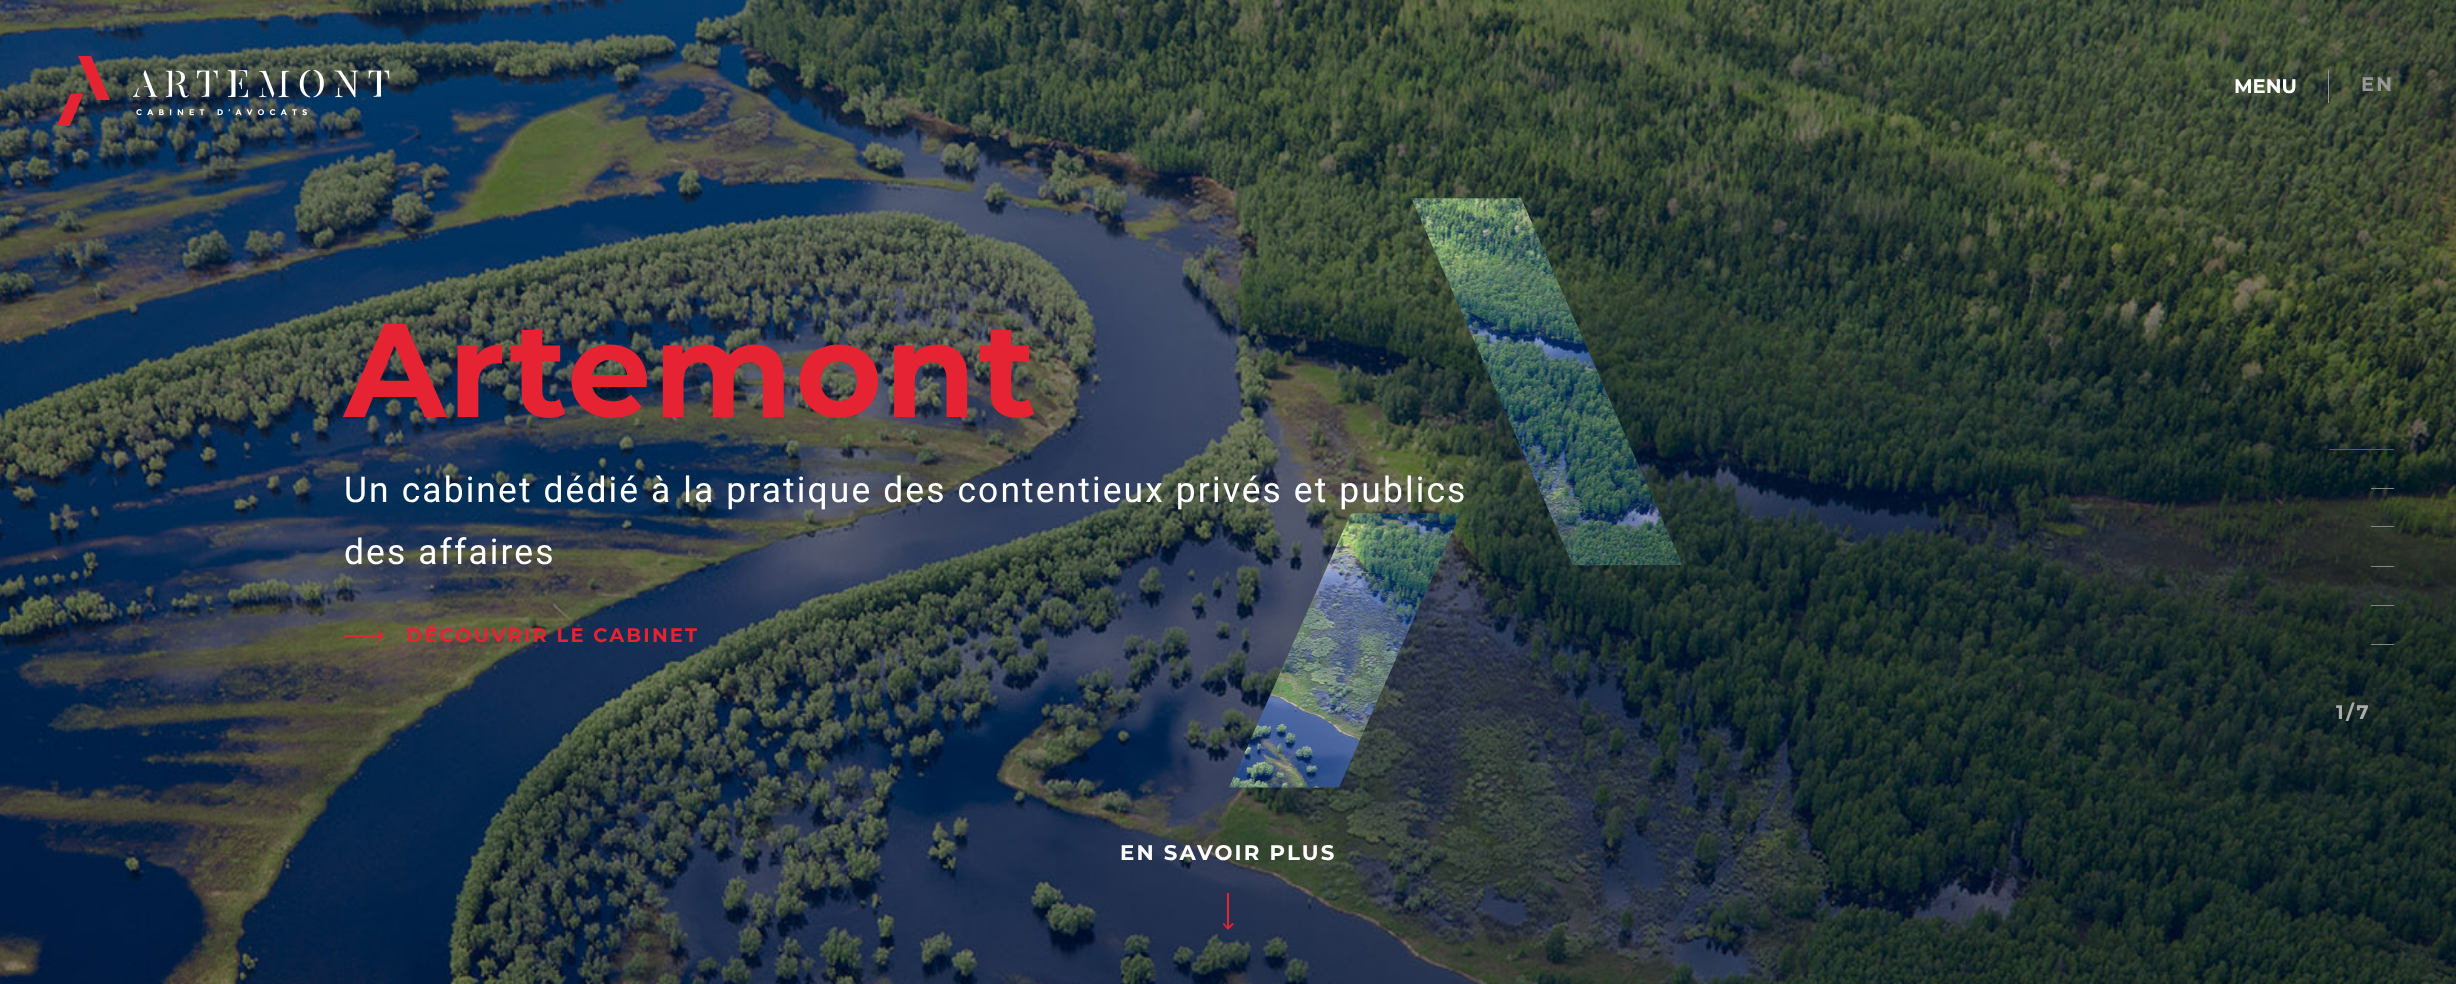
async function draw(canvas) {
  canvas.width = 2456;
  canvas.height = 984;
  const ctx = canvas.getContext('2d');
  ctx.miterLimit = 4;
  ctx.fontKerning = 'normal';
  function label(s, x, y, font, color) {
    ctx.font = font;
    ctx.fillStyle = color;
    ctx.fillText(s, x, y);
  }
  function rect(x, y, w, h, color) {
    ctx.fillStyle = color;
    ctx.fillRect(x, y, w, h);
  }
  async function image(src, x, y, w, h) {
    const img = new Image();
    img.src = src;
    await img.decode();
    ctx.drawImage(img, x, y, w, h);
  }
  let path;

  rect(0, 0, 2456, 984, '#fff');
  await image('assets/img2.png', 0, 0, 2456, 984);
  ctx.fillStyle = '#e52332';
  path = new Path2D('M110 100H97L78 56H91Z');
  ctx.fill(path);
  ctx.save();
  ctx.beginPath();
  ctx.rect(56, 56, 54, 70);
  ctx.clip();
  path = new Path2D('M56.5 126.5L69 97.5C70.5 94 69.5 93.5 72.5 93.5H83.5L69.5 126.5Z');
  ctx.fill(path);
  ctx.restore();
  await image('assets/img1.png', 133, 69, 257, 47);
  rect(2328, 70, 1, 33, '#989898');
  label('MENU', 2234, 93, 'bold 19.5px Montserrat', '#fff');
  ctx.letterSpacing = '2.12px';
  label('EN', 2361, 91, 'bold 19.5px Montserrat', '#989898');
  await image('assets/img3.png', 1229, 198, 453, 590);
  label('Artemont', 344, 417, 'bold 133px Montserrat', '#e52332');
  label('Un cabinet dédié à la pratique des contentieux privés et publics', 344, 502, '35.4px Roboto', '#fff');
  label('des affaires', 344, 564, '35.4px Roboto', '#fff');
  ctx.fillStyle = '#e52332';
  path = new Path2D('M378 630L377 631L380 635H344V637H381L377 641L378 642L384 636Z');
  ctx.fill(path);
  label('DÉCOUVRIR LE CABINET', 406, 642, 'bold 19.5px Montserrat', '#e52332');
  label('EN SAVOIR PLUS', 1120, 860, 'bold 21.25px Montserrat', '#fff');
  ctx.save();
  ctx.beginPath();
  ctx.rect(1223, 893, 11, 37);
  ctx.clip();
  ctx.fillStyle = '#e52332';
  path = new Path2D('M1234 924L1232.5 923L1229 926V892.5H1227V926.5L1224 923L1222.5 924L1228 930Z');
  ctx.fill(path);
  ctx.restore();
  rect(2329, 449, 65, 1, '#e52332');
  rect(2371, 488, 23, 1, '#858585');
  rect(2371, 526, 23, 1, '#858585');
  rect(2371, 566, 23, 1, '#858585');
  rect(2371, 605, 23, 1, '#858585');
  rect(2371, 644, 23, 1, '#858585');
  ctx.letterSpacing = '2.5px';
  label('1/7', 2336, 719, 'bold 19.5px Montserrat', '#ababab');
}

draw(document.querySelector('canvas'));
